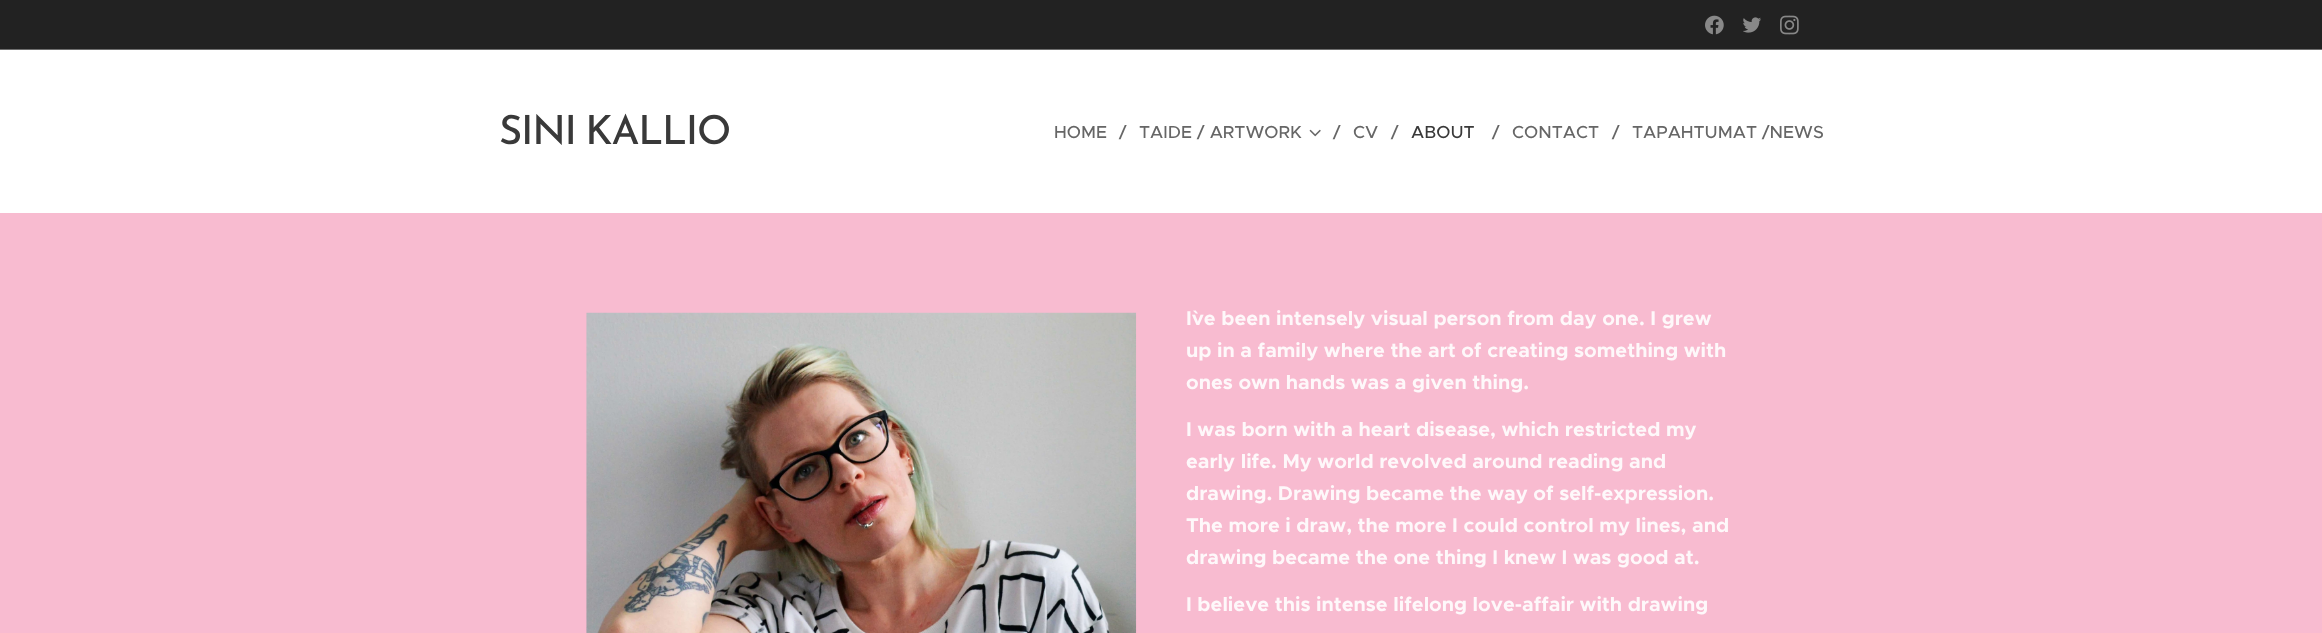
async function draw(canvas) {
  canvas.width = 2322;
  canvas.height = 633;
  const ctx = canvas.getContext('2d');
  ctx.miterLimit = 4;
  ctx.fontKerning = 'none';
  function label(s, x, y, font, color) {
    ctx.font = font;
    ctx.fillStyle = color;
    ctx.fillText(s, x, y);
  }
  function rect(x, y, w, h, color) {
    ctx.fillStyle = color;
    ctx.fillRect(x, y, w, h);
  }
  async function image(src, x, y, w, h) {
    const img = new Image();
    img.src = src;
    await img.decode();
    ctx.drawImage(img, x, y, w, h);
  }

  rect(0, 0, 2322, 633, '#fff');
  rect(0, 0, 2322, 49, '#222');
  await image('assets/img1.png', 1705, 15, 19, 20);
  await image('assets/img2.png', 1743, 17, 18, 16);
  await image('assets/img3.png', 1780, 15, 19, 20);
  rect(0, 49, 2322, 1, '#6e6e6e');
  ctx.letterSpacing = '-1.25px';
  ctx.wordSpacing = '-2px';
  label('SINI KALLIO', 499, 144, '500 40px Josefin Sans', '#393939');
  ctx.letterSpacing = '0px';
  ctx.wordSpacing = '0px';
  label('HOME', 1054, 138, '500 17.5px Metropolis', '#666');
  label('/', 1119, 138, '500 17.5px Metropolis', '#666');
  label('TAIDE / ARTWORK', 1139, 138, '500 17.5px Metropolis', '#666');
  label('/', 1333, 138, '500 17.5px Metropolis', '#666');
  await image('assets/img4.png', 1309, 129, 12, 8);
  label('CV', 1353, 138, '500 17.5px Metropolis', '#666');
  label('/', 1391, 138, '500 17.5px Metropolis', '#666');
  label('ABOUT', 1411, 138, '500 17.5px Metropolis', '#393939');
  label('/', 1492, 138, '500 17.5px Metropolis', '#666');
  label('CONTACT', 1512, 138, '500 17.5px Metropolis', '#666');
  label('/', 1612, 138, '500 17.5px Metropolis', '#666');
  label('TAPAHTUMAT /NEWS', 1632, 138, '500 17.5px Metropolis', '#666');
  rect(0, 213, 2322, 420, '#f8bbd0');
  await image('assets/img5.png', 586, 312, 551, 321);
  label('I`ve been intensely visual person from day one. I grew', 1186, 325, 'bold 20px Metropolis', '#fef8fa');
  label('up in a family where the art of creating something with', 1186, 357, 'bold 20px Metropolis', '#fef8fa');
  label('ones own hands was a given thing.', 1186, 389, 'bold 20px Metropolis', '#fef8fa');
  label('I was born with a heart disease, which restricted my', 1186, 436, 'bold 20px Metropolis', '#fef8fa');
  label('early life. My world revolved around reading and', 1186, 468, 'bold 20px Metropolis', '#fef8fa');
  label('drawing. Drawing became the way of self-expression.', 1186, 500, 'bold 20px Metropolis', '#fef8fa');
  label('The more i draw, the more I could control my lines, and', 1186, 532, 'bold 20px Metropolis', '#fef8fa');
  label('drawing became the one thing I knew I was good at.', 1186, 564, 'bold 20px Metropolis', '#fef8fa');
  label('I believe this intense lifelong love-affair with drawing', 1186, 611, 'bold 20px Metropolis', '#fef8fa');
}

draw(document.querySelector('canvas'));
